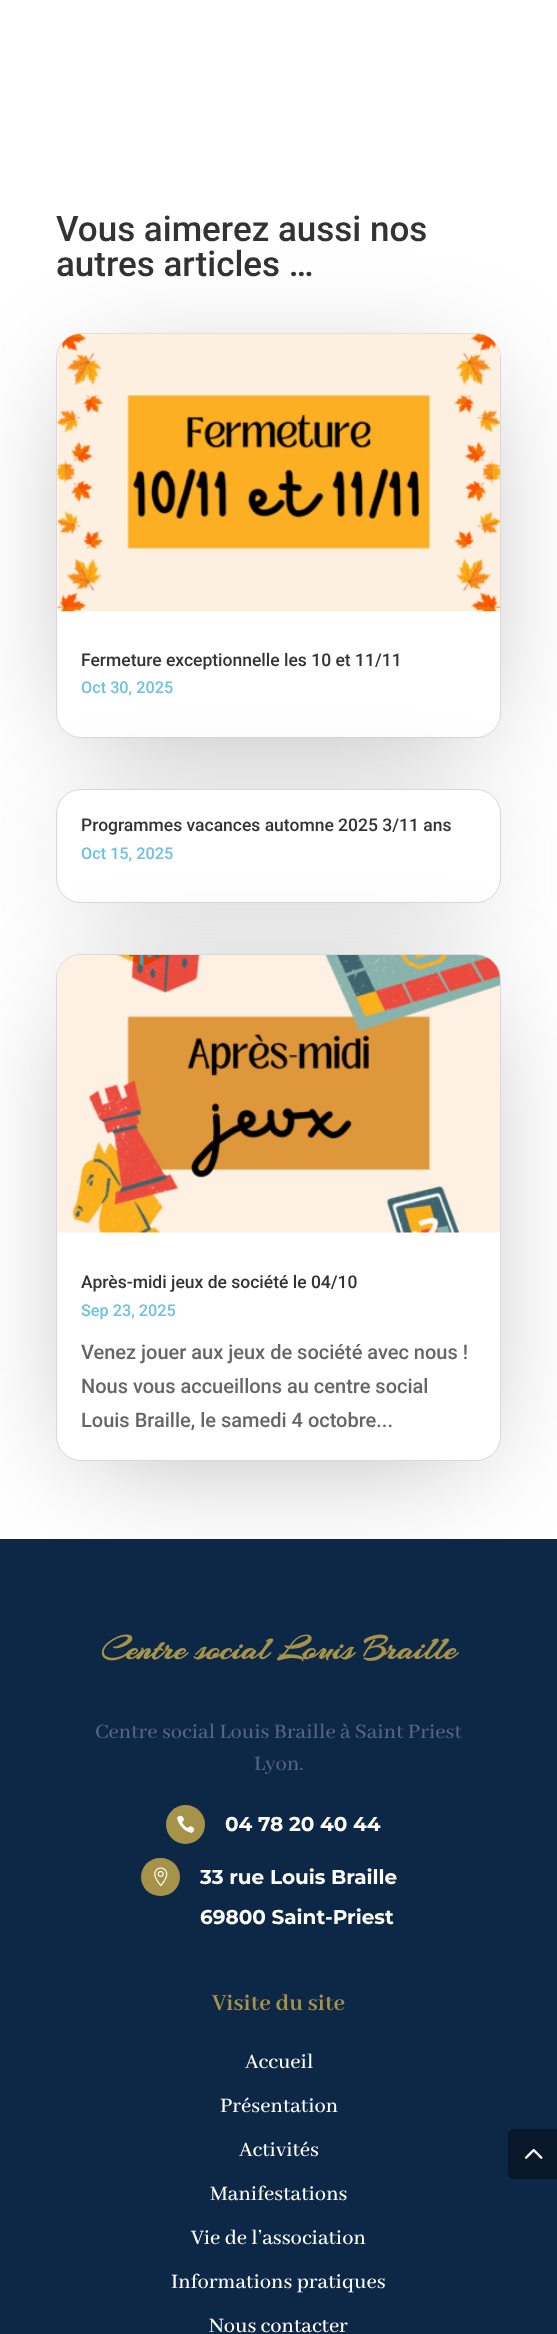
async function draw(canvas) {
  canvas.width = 557;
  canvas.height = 2334;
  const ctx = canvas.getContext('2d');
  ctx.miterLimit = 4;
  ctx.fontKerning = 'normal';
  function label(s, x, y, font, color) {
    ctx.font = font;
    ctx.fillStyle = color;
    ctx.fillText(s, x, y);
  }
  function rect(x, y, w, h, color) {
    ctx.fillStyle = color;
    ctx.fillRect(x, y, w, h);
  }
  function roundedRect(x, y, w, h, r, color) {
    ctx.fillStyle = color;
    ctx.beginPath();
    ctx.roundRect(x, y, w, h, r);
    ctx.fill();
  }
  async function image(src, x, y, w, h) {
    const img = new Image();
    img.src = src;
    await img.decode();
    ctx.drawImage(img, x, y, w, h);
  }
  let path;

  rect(0, 0, 557, 2334, '#fff');
  label('Vous aimerez aussi nos', 56, 241, '500 35px Roboto', '#333');
  label('autres articles …', 56, 276, '500 35px Roboto', '#333');
  ctx.fillStyle = '#0000004d';
  ctx.filter = 'blur(60px)';
  ctx.beginPath();
  ctx.rect(86, 383, 385, 345);
  ctx.fill();
  ctx.filter = 'none';
  ctx.fillStyle = '#fff';
  ctx.beginPath();
  ctx.roundRect(56.5, 333.5, 444, 404, 24.5);
  ctx.fill();
  ctx.strokeStyle = '#d8d8d8';
  ctx.stroke();
  await image('assets/img1.png', 57, 333, 443, 279);
  label('Fermeture exceptionnelle les 10 et 11/11', 81, 666, '500 17.5px Roboto', '#333');
  label('Oct 30, 2025', 81, 693, '500 16.25px Roboto', '#6ec1e4');
  ctx.fillStyle = '#0000004d';
  ctx.filter = 'blur(60px)';
  ctx.beginPath();
  ctx.rect(86, 839, 385, 54);
  ctx.fill();
  ctx.filter = 'none';
  ctx.fillStyle = '#fff';
  ctx.beginPath();
  ctx.roundRect(56.5, 789.5, 444, 113, 24.5);
  ctx.fill();
  ctx.stroke();
  label('Programmes vacances automne 2025 3/11 ans', 81, 831, '500 17.5px Roboto', '#333');
  label('Oct 15, 2025', 81, 859, '500 16.25px Roboto', '#6ec1e4');
  ctx.fillStyle = '#0000004d';
  ctx.filter = 'blur(60px)';
  ctx.beginPath();
  ctx.rect(86, 1004, 385, 447);
  ctx.fill();
  ctx.filter = 'none';
  ctx.fillStyle = '#fff';
  ctx.beginPath();
  ctx.roundRect(56.5, 954.5, 444, 506, 24.5);
  ctx.fill();
  ctx.stroke();
  await image('assets/img2.png', 57, 955, 443, 278);
  label('Après-midi jeux de société le 04/10', 81, 1288, '500 17.5px Roboto', '#333');
  label('Sep 23, 2025', 81, 1316, '500 16.25px Roboto', '#6ec1e4');
  label('Venez jouer aux jeux de société avec nous !', 81, 1359, '500 20px Roboto', '#666');
  label('Nous vous accueillons au centre social', 81, 1393, '500 20px Roboto', '#666');
  label('Louis Braille, le samedi 4 octobre...', 81, 1427, '500 20px Roboto', '#666');
  rect(0, 1539, 557, 795, '#0d2746');
  label('Centre social Louis Braille', 101, 1659, 'bold 35px Arizonia', '#a69349');
  label('Centre social Louis Braille à Saint Priest', 95, 1738, '500 22.5px Abhaya Libre Medium', '#56687e');
  label('Lyon.', 254, 1770, '500 22.5px Abhaya Libre Medium', '#56687e');
  ctx.fillStyle = '#a69349';
  ctx.beginPath();
  ctx.arc(185.5, 1824.5, 19.5, 0, 2 * Math.PI);
  ctx.fill();
  await image('assets/img3.png', 177, 1815, 18, 18);
  label('04 78 20 40 44', 225, 1831, 'bold 20px Montserrat', '#fff');
  roundedRect(141, 1858, 39, 38, 19, '#a69349');
  await image('assets/img4.png', 154, 1867, 14, 20);
  label('33 rue Louis Braille', 200, 1884, 'bold 20px Montserrat', '#fff');
  label('69800 Saint-Priest', 200, 1924, 'bold 20px Montserrat', '#fff');
  label('Visite du site', 212, 2010, 'bold 25px Abhaya Libre', '#a69349');
  label('Accueil', 245, 2068, '500 22.5px Abhaya Libre Medium', '#fff');
  label('Présentation', 220, 2112, '500 22.5px Abhaya Libre Medium', '#fff');
  label('Activités', 239, 2156, '500 22.5px Abhaya Libre Medium', '#fff');
  label('Manifestations', 210, 2200, '500 22.5px Abhaya Libre Medium', '#fff');
  label('Vie de l’association', 191, 2244, '500 22.5px Abhaya Libre Medium', '#fff');
  label('Informations pratiques', 171, 2288, '500 22.5px Abhaya Libre Medium', '#fff');
  label('Nous contacter', 209, 2332, '500 22.5px Abhaya Libre Medium', '#fff');
  ctx.fillStyle = '#08172a';
  path = new Path2D('M514 2129H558V2179H514C510.5 2179 508 2176.5 508 2173V2135C508 2131.5 510.5 2129 514 2129Z');
  ctx.fill(path);
  await image('assets/img5.png', 524, 2148, 19, 11);
}

draw(document.querySelector('canvas'));
